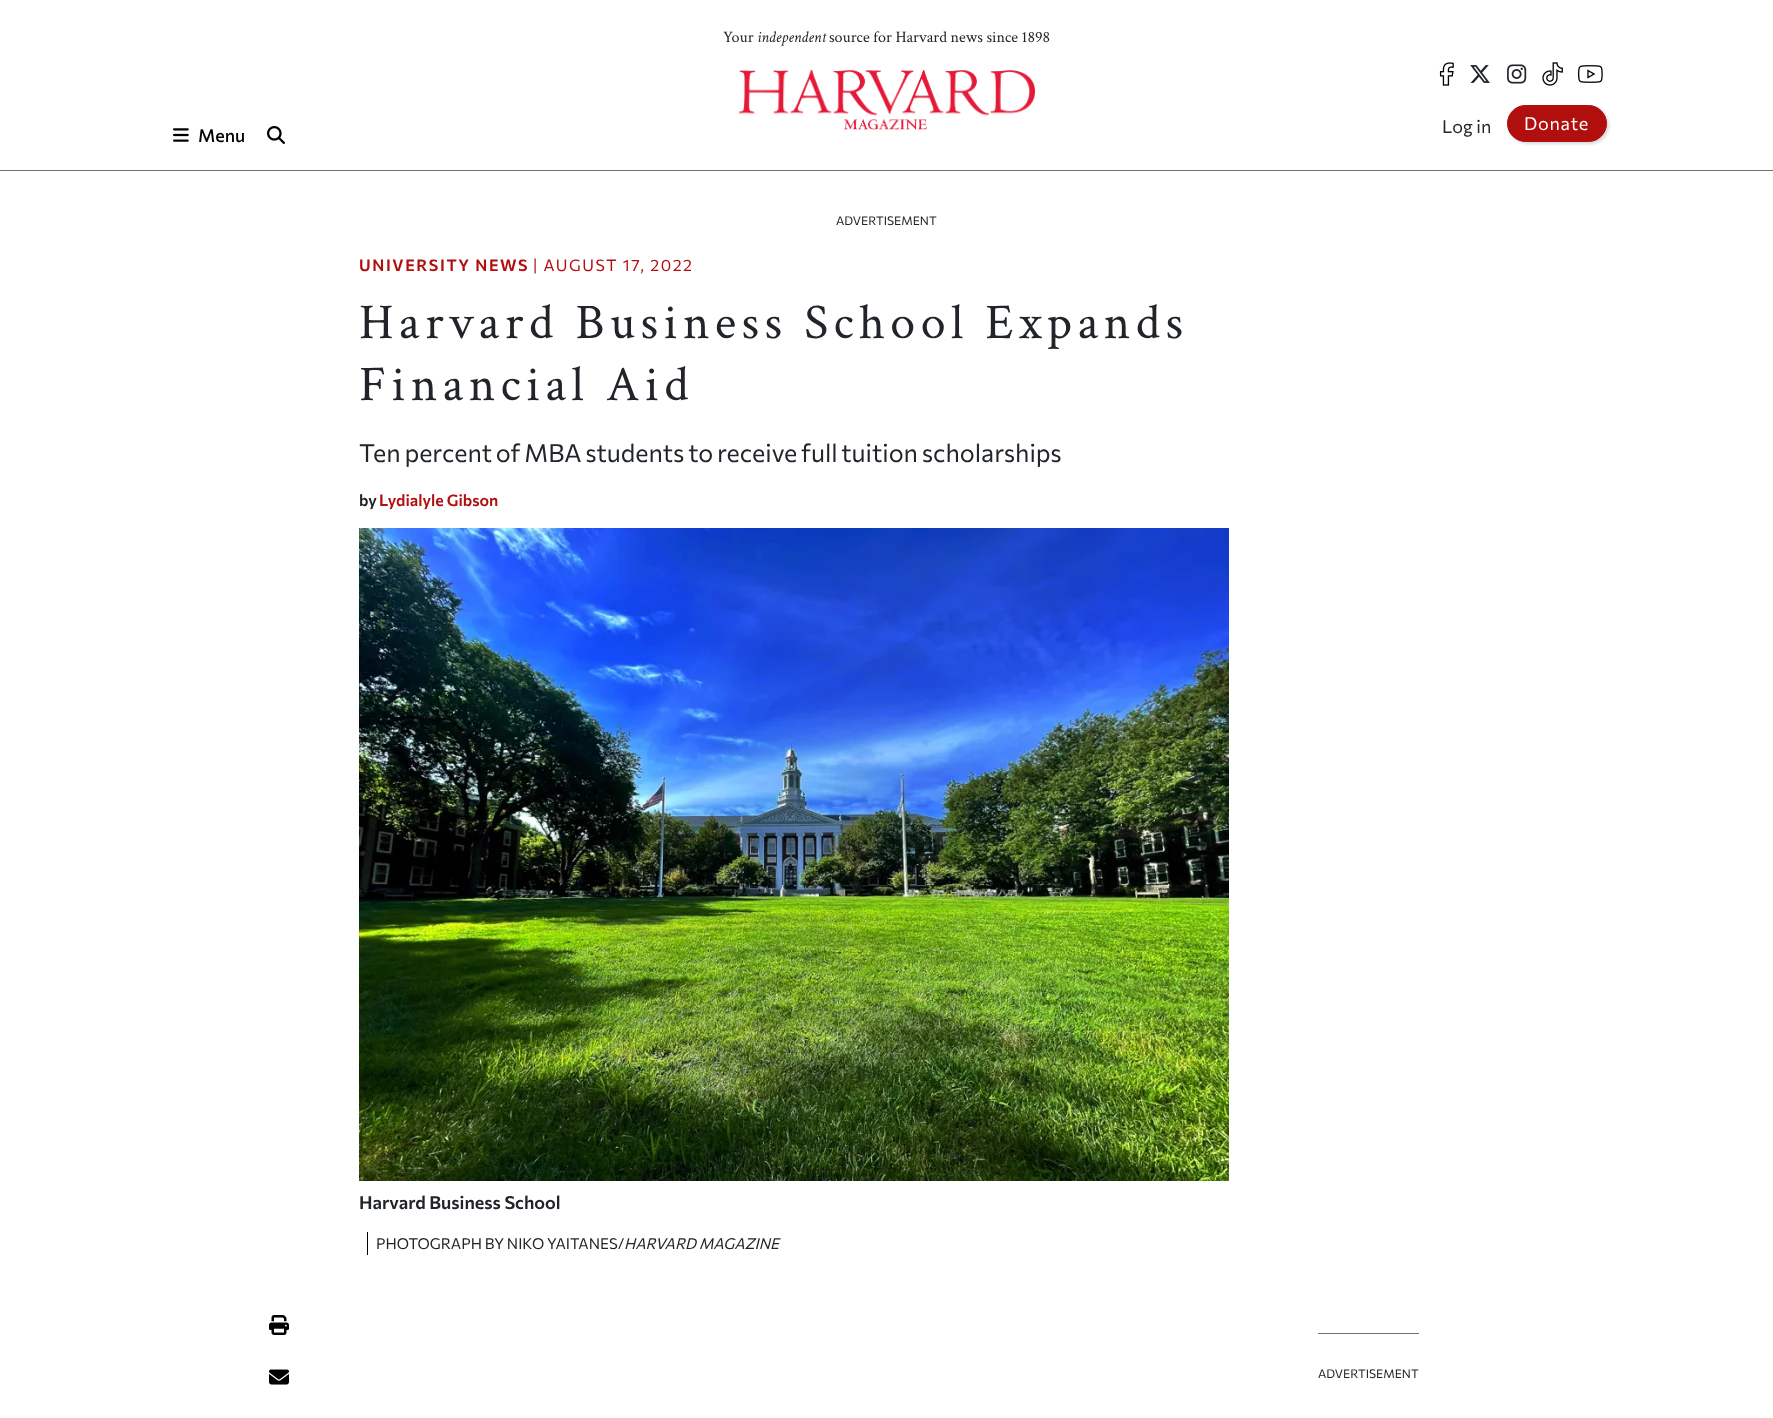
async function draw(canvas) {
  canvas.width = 1773;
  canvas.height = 1418;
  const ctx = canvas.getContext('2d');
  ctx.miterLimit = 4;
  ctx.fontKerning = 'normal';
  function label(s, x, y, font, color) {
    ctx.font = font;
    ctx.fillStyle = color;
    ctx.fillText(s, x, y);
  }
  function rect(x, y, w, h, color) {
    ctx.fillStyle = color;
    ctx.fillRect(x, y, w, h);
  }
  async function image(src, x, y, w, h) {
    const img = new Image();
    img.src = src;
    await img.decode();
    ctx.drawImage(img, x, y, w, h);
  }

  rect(0, 0, 1773, 1418, '#fff');
  rect(0, 170, 1773, 1, '#707070');
  label('Your', 723, 42, '16px Crimson Text', '#212529');
  label('independent', 757, 42, 'italic 16px Crimson Text', '#212529');
  label('source for Harvard news since 1898', 829, 42, '16px Crimson Text', '#212529');
  await image('assets/img1.png', 739, 70, 296, 60);
  await image('assets/img2.png', 173, 128, 16, 14);
  label('Menu', 198, 142, '500 18px Commissioner', '#000');
  await image('assets/img3.png', 267, 126, 18, 18);
  await image('assets/img4.png', 1439, 62, 15, 24);
  await image('assets/img5.png', 1470, 65, 20, 18);
  await image('assets/img6.png', 1507, 64, 20, 20);
  await image('assets/img7.png', 1542, 62, 21, 24);
  await image('assets/img8.png', 1578, 65, 25, 18);
  label('Log in', 1442, 133, '18px Commissioner', '#212529');
  ctx.fillStyle = '#00000026';
  ctx.filter = 'blur(1.5px)';
  ctx.beginPath();
  ctx.roundRect(1509, 107, 100, 37, 18.5);
  ctx.fill();
  ctx.filter = 'none';
  ctx.fillStyle = '#b10e0e';
  ctx.beginPath();
  ctx.roundRect(1507.5, 105.5, 99, 36, 18);
  ctx.fill();
  ctx.strokeStyle = '#b10e0e';
  ctx.stroke();
  ctx.letterSpacing = '0.75px';
  label('Donate', 1524, 130, '18px Commissioner', '#fff');
  ctx.letterSpacing = '0px';
  label('ADVERTISEMENT', 836, 225, '12px Commissioner', '#212529');
  ctx.letterSpacing = '1.6px';
  label('UNIVERSITY NEWS', 359, 271, '600 16px Commissioner', '#b10e0e');
  label('| AUGUST 17, 2022', 533, 271, '16px Commissioner', '#b10e0e');
  ctx.letterSpacing = '5.5px';
  label('Harvard Business School Expands', 359, 338, '50px Crimson Text', '#212529');
  label('Financial Aid', 359, 400, '50px Crimson Text', '#212529');
  ctx.letterSpacing = '0px';
  ctx.wordSpacing = '-1px';
  label('Ten percent of MBA students to receive full tuition scholarships', 359, 462, '25px Commissioner', '#212529');
  ctx.wordSpacing = '0px';
  label('by', 359, 506, '600 16px Commissioner', '#212529');
  label('Lydialyle Gibson', 379, 506, '600 16px Commissioner', '#b10e0e');
  await image('assets/img9.png', 359, 528, 870, 653);
  label('Harvard Business School', 359, 1209, '600 18px Commissioner', '#212529');
  rect(367, 1232, 1, 23, '#000');
  label('PHOTOGRAPH BY NIKO YAITANES/', 376, 1249, '15px Commissioner', '#212529');
  label('HARVARD MAGAZINE', 624, 1249, 'italic 15px Commissioner', '#212529');
  await image('assets/img10.png', 269, 1315, 20, 20);
  await image('assets/img11.png', 269, 1369, 20, 16);
  rect(1318, 1333, 101, 1, '#707070');
  label('ADVERTISEMENT', 1318, 1378, '12px Commissioner', '#212529');
}

draw(document.querySelector('canvas'));
